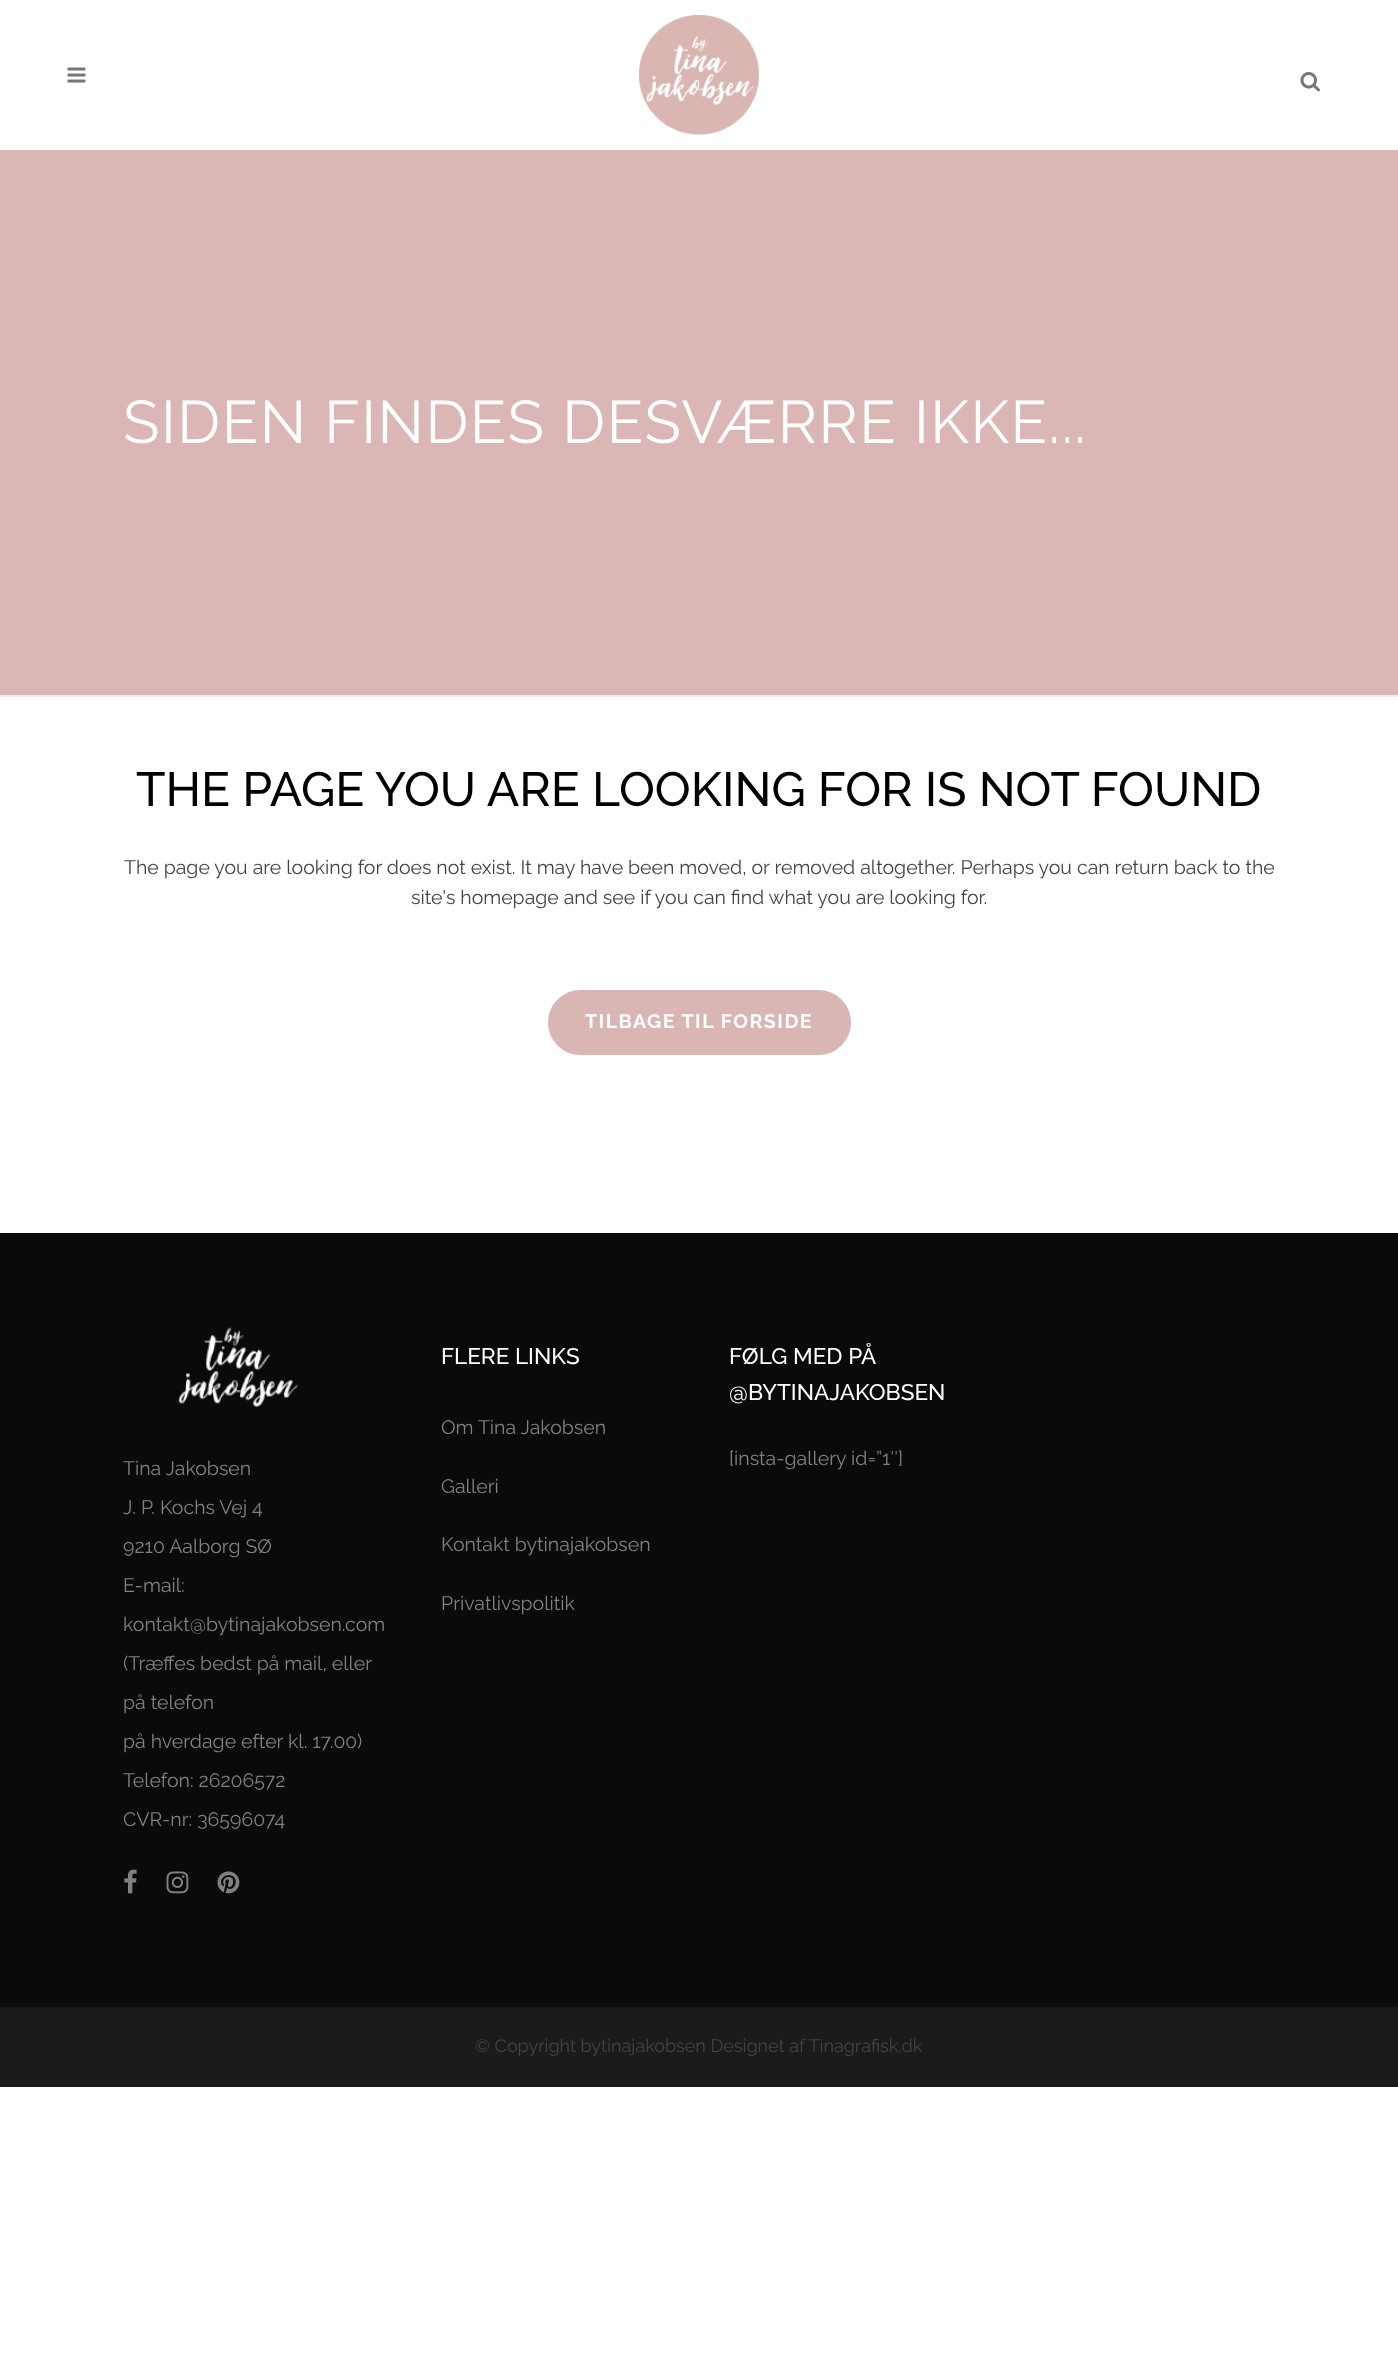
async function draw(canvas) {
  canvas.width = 1398;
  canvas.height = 2354;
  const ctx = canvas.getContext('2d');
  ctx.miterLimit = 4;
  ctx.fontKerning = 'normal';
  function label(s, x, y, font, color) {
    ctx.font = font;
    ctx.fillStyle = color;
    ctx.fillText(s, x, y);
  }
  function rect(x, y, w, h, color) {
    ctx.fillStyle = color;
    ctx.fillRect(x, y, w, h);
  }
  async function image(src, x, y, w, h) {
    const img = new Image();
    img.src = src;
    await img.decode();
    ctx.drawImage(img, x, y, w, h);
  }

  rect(0, 0, 1398, 2354, '#fff');
  await image('assets/img1.png', 67, 67, 19, 16);
  await image('assets/img2.png', 639, 15, 120, 120);
  await image('assets/img3.png', 1300, 72, 20, 20);
  rect(0, 695, 1398, 2, '#eee');
  rect(0, 150, 1398, 545, '#dab7b5');
  ctx.letterSpacing = '1.5px';
  label('SIDEN FINDES DESVÆRRE IKKE...', 123, 443, '60px Raleway', '#fff');
  ctx.letterSpacing = '0px';
  label('THE PAGE YOU ARE LOOKING FOR IS NOT FOUND', 136, 806, '500 48px Raleway', '#000');
  label('The page you are looking for does not exist. It may have been moved, or removed altogether. Perhaps you can return back to the', 124, 874, '19.5px Raleway', '#444');
  label('site\'s homepage and see if you can find what you are looking for.', 411, 904, '19.5px Raleway', '#444');
  ctx.fillStyle = '#d9b6b4';
  ctx.beginPath();
  ctx.roundRect(549.5, 991.5, 300, 62, 31);
  ctx.fill();
  ctx.strokeStyle = '#d9b6b4';
  ctx.lineWidth = 3;
  ctx.stroke();
  ctx.letterSpacing = '1.5px';
  label('TILBAGE TIL FORSIDE', 585, 1028, 'bold 19.5px Raleway', '#fff');
  rect(0, 1233, 1398, 774, '#0a0a0a');
  await image('assets/img4.png', 178, 1327, 120, 80);
  ctx.letterSpacing = '0px';
  label('Tina Jakobsen', 123, 1475, '19.5px Raleway', '#818181');
  label('J. P. Kochs Vej 4', 123, 1514, '19.5px Raleway', '#818181');
  label('9210 Aalborg SØ', 123, 1553, '19.5px Raleway', '#818181');
  label('E-mail:', 123, 1592, '19.5px Raleway', '#818181');
  label('kontakt@bytinajakobsen.com', 123, 1631, '19.5px Raleway', '#818181');
  label('(Træffes bedst på mail, eller', 123, 1670, '19.5px Raleway', '#818181');
  label('på telefon', 123, 1709, '19.5px Raleway', '#818181');
  label('på hverdage efter kl. 17.00)', 123, 1748, '19.5px Raleway', '#818181');
  label('Telefon: 26206572', 123, 1787, '19.5px Raleway', '#818181');
  label('CVR-nr: 36596074', 123, 1826, '19.5px Raleway', '#818181');
  await image('assets/img5.png', 124, 1869, 13, 25);
  await image('assets/img6.png', 166, 1871, 23, 23);
  await image('assets/img7.png', 217, 1871, 23, 23);
  label('FLERE LINKS', 441, 1364, '500 22.5px Raleway', '#fff');
  label('Om Tina Jakobsen', 441, 1434, '19.5px Raleway', '#818181');
  label('Galleri', 441, 1493, '19.5px Raleway', '#818181');
  label('Kontakt bytinajakobsen', 441, 1551, '19.5px Raleway', '#818181');
  label('Privatlivspolitik', 441, 1610, '19.5px Raleway', '#818181');
  label('FØLG MED PÅ', 729, 1364, '500 22.5px Raleway', '#fff');
  label('@BYTINAJAKOBSEN', 729, 1400, '500 22.5px Raleway', '#fff');
  label('[insta-gallery id=”1″]', 729, 1465, '19.5px Raleway', '#818181');
  rect(0, 2007, 1398, 80, '#1b1b1b');
  label('© Copyright bytinajakobsen Designet af Tinagrafisk.dk', 475, 2052, '18px Raleway', '#444');
}

draw(document.querySelector('canvas'));
